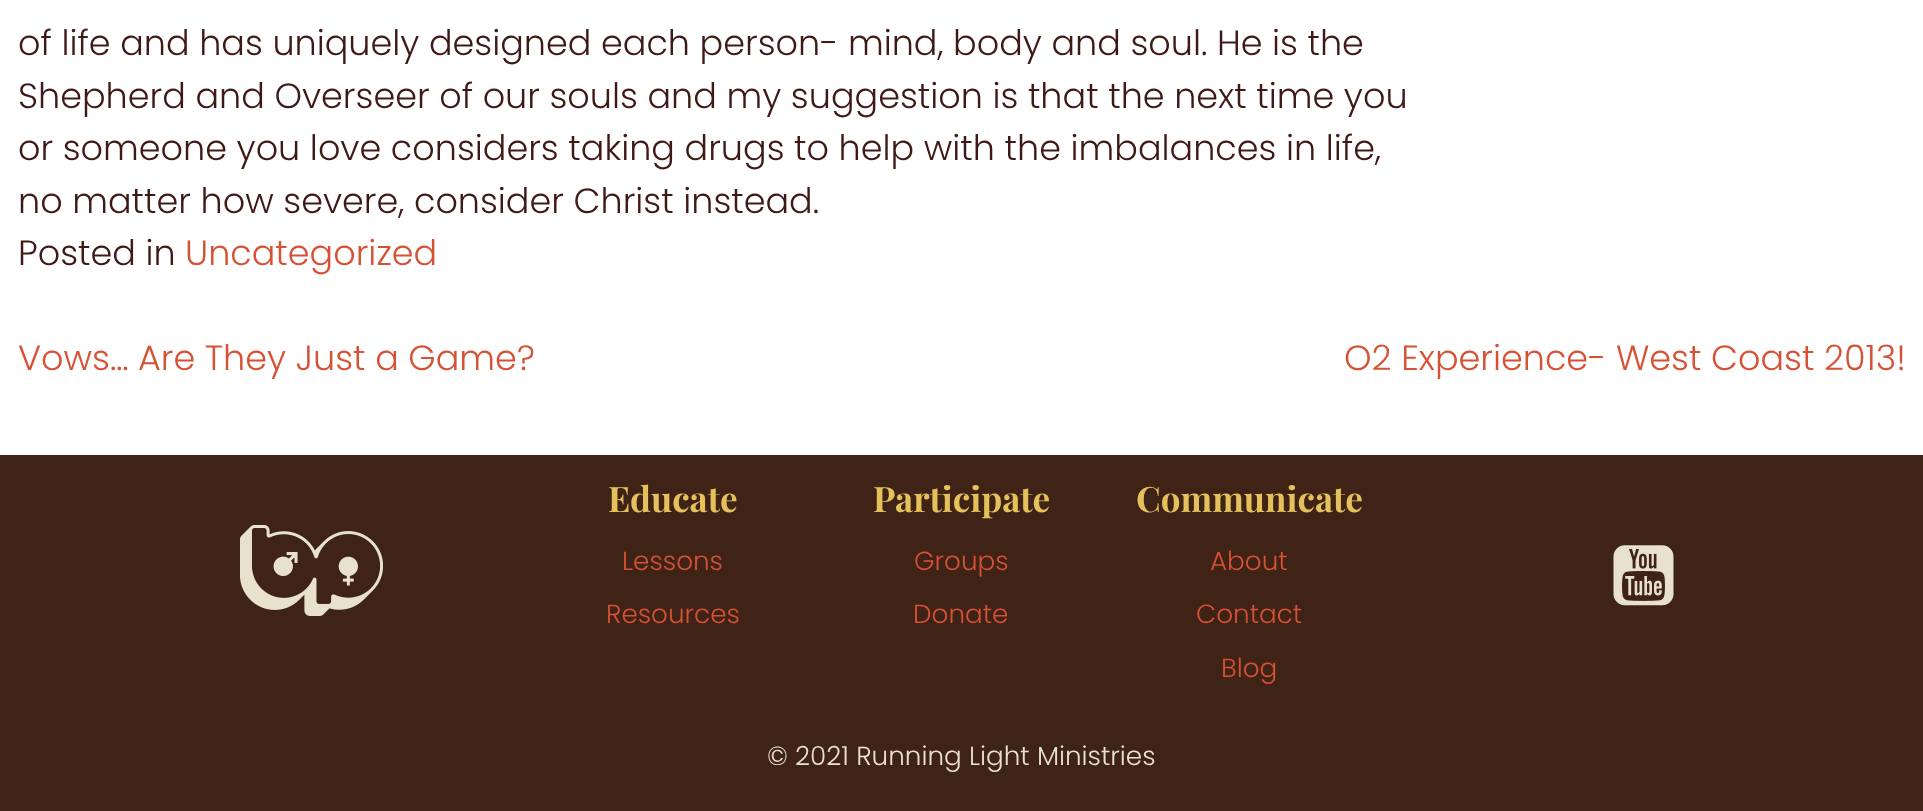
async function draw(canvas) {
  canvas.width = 1923;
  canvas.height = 811;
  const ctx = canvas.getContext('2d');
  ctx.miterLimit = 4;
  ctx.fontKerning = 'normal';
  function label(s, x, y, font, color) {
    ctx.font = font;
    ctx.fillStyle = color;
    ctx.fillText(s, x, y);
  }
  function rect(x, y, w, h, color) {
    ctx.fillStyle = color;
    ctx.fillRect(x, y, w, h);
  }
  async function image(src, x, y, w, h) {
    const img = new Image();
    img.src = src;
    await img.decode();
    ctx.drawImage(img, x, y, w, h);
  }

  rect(0, 0, 1923, 811, '#fff');
  label('of life and has uniquely designed each person- mind, body and soul. He is the', 18, 55, '300 35px Poppins', '#3f1916');
  label('Shepherd and Overseer of our souls and my suggestion is that the next time you', 18, 108, '300 35px Poppins', '#3f1916');
  label('or someone you love considers taking drugs to help with the imbalances in life,', 18, 160, '300 35px Poppins', '#3f1916');
  label('no matter how severe, consider Christ instead.', 18, 213, '300 35px Poppins', '#3f1916');
  label('Posted in', 18, 265, '300 35px Poppins', '#3f1916');
  label('Uncategorized', 185, 265, '300 35px Poppins', '#d75135');
  label('Vows… Are They Just a Game?', 18, 370, '300 35px Poppins', '#d75135');
  label('O2 Experience- West Coast 2013!', 1344, 370, '300 35px Poppins', '#d75135');
  rect(0, 455, 1923, 356, '#3f2316');
  await image('assets/img1.png', 240, 525, 143, 91);
  label('Educate', 608, 512, 'bold 35px Playfair Display', '#e5c15c');
  label('Lessons', 622, 570, '300 26.25px Poppins', '#d75135');
  label('Resources', 606, 623, '300 26.25px Poppins', '#d75135');
  label('Participate', 873, 512, 'bold 35px Playfair Display', '#e5c15c');
  label('Groups', 914, 570, '300 26.25px Poppins', '#d75135');
  label('Donate', 913, 623, '300 26.25px Poppins', '#d75135');
  label('Communicate', 1136, 512, 'bold 35px Playfair Display', '#e5c15c');
  label('About', 1210, 570, '300 26.25px Poppins', '#d75135');
  label('Contact', 1196, 623, '300 26.25px Poppins', '#d75135');
  label('Blog', 1221, 677, '300 26.25px Poppins', '#d75135');
  await image('assets/img2.png', 1613, 545, 61, 61);
  label('© 2021 Running Light Ministries', 767, 765, '300 26.25px Poppins', '#e8e2cd');
}

draw(document.querySelector('canvas'));
